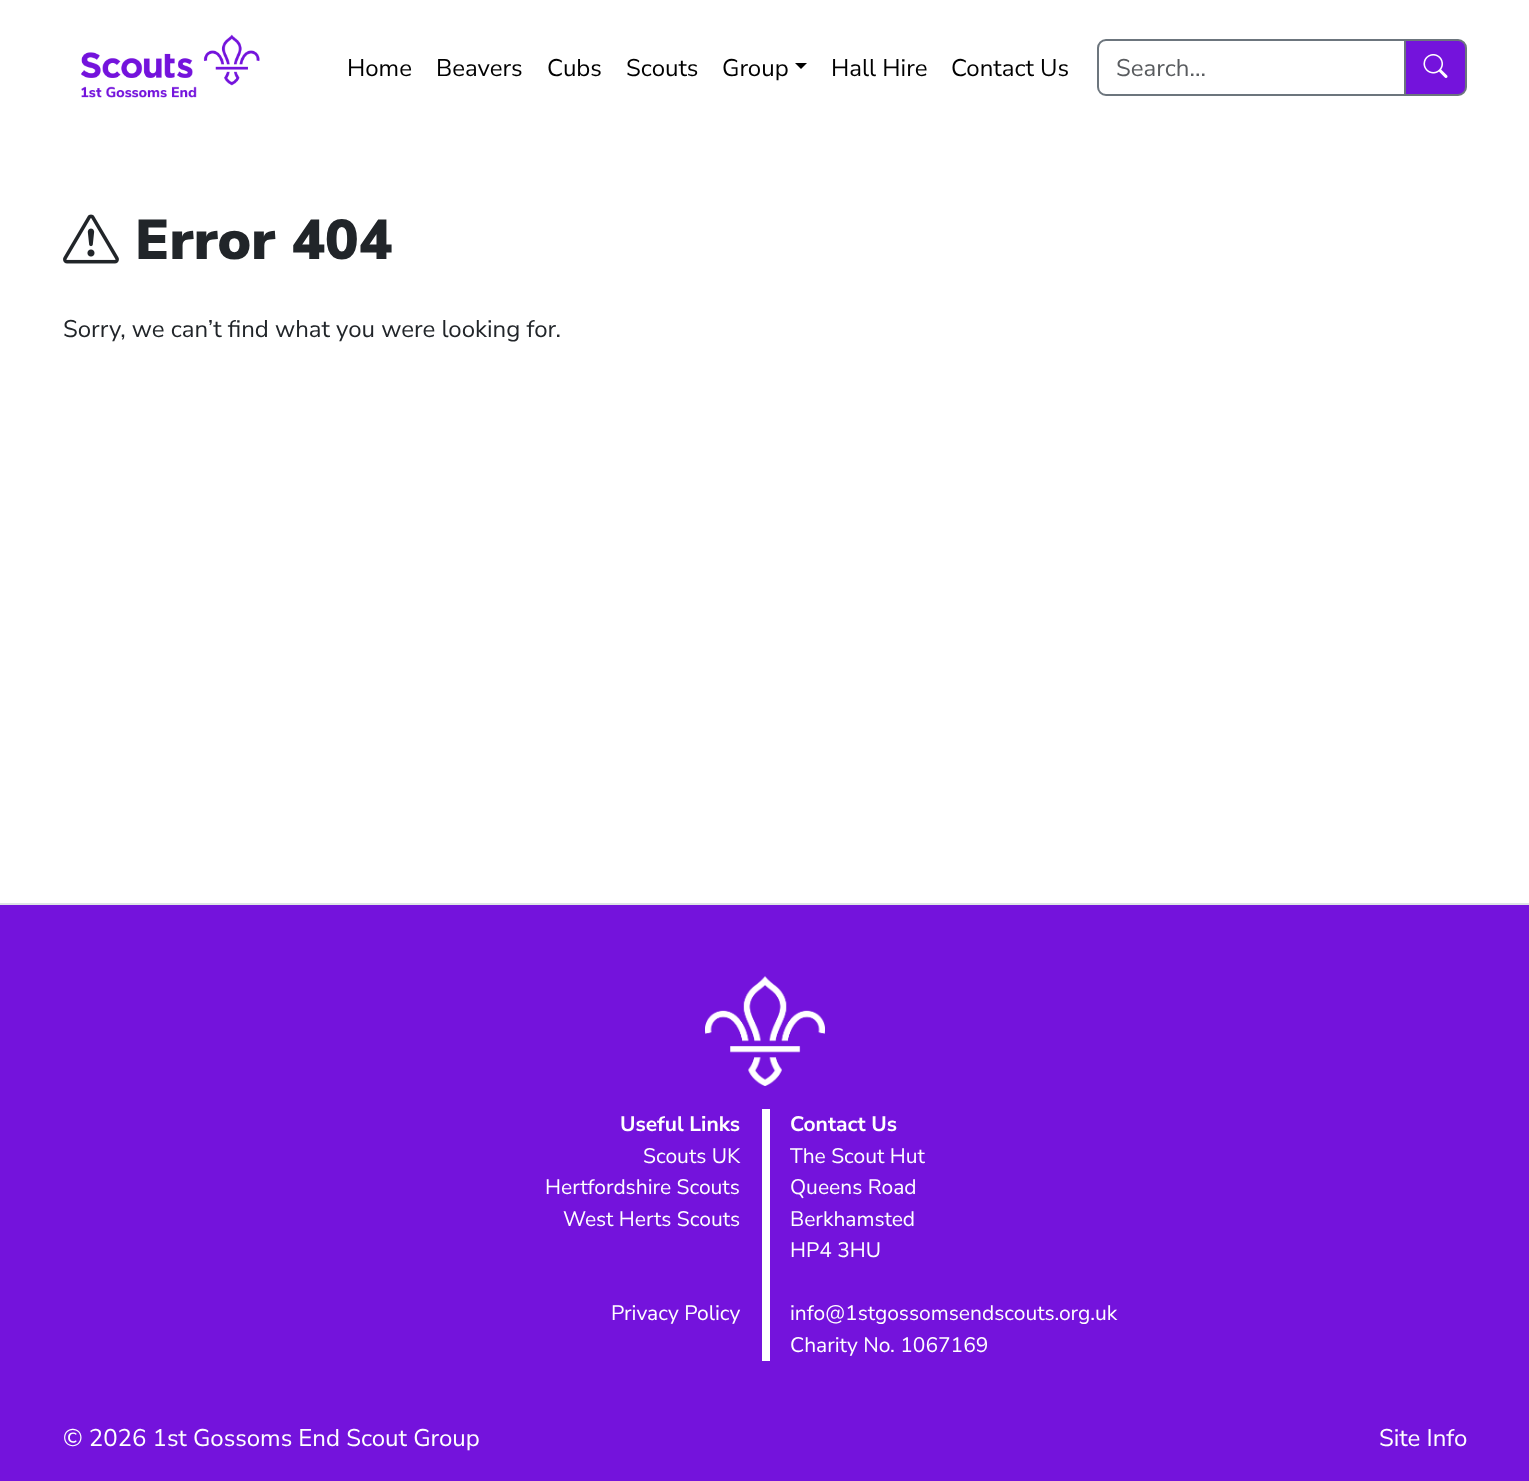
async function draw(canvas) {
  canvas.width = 1529;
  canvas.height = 1481;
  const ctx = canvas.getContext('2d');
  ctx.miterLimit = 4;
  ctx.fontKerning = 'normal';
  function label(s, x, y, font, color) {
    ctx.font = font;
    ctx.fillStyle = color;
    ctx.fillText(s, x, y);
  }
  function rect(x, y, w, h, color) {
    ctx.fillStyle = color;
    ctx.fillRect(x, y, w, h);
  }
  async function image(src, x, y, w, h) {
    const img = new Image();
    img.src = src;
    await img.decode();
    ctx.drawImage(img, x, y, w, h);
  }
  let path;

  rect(0, 0, 1529, 1481, '#fff');
  await image('assets/img1.png', 81, 34, 179, 64);
  label('Home', 347, 76, '200 24px "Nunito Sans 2"', '#000');
  label('Beavers', 436, 76, '200 24px "Nunito Sans 2"', '#000');
  label('Cubs', 547, 76, '200 24px "Nunito Sans 2"', '#000');
  label('Scouts', 626, 76, '200 24px "Nunito Sans 2"', '#000');
  label('Group', 722, 76, '200 24px "Nunito Sans 2"', '#000');
  path = new Path2D('M795 63H807L801 69Z');
  ctx.fill(path);
  label('Hall Hire', 831, 76, '200 24px "Nunito Sans 2"', '#000');
  label('Contact Us', 951, 76, '200 24px "Nunito Sans 2"', '#000');
  ctx.beginPath();
  ctx.roundRect(1098, 40, 307, 55, [8, 0, 0, 8]);
  ctx.strokeStyle = '#6c757d';
  ctx.lineWidth = 2;
  ctx.stroke();
  label('Search...', 1116, 76, '200 24px "Nunito Sans 2"', '#595c5f');
  ctx.fillStyle = '#7413dc';
  ctx.beginPath();
  ctx.roundRect(1405, 40, 61, 55, [0, 8, 8, 0]);
  ctx.fill();
  ctx.stroke();
  await image('assets/img2.png', 1423, 54, 25, 24);
  await image('assets/img3.png', 63, 214, 56, 50);
  label('Error 404', 135, 259, '200 56px Nunito Sans', '#212529');
  label('Sorry, we can’t find what you were looking for.', 63, 337, '200 24px "Nunito Sans 2"', '#212529');
  rect(0, 905, 1529, 576, '#7413dc');
  rect(0, 903, 1529, 2, '#dee2e6');
  await image('assets/img4.png', 705, 976, 120, 110);
  label('Useful Links', 620, 1131, '200 21px "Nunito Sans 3"', '#fff');
  label('Scouts UK', 643, 1163, '200 21px "Nunito Sans 2"', '#fff');
  label('Hertfordshire Scouts', 545, 1194, '200 21px "Nunito Sans 2"', '#fff');
  label('West Herts Scouts', 563, 1226, '200 21px "Nunito Sans 2"', '#fff');
  label('Privacy Policy', 611, 1320, '200 21px "Nunito Sans 2"', '#fff');
  rect(762, 1109, 8, 252, '#fff');
  label('Contact Us', 790, 1131, '200 21px "Nunito Sans 3"', '#fff');
  label('The Scout Hut', 790, 1163, '200 21px "Nunito Sans 2"', '#fff');
  label('Queens Road', 790, 1194, '200 21px "Nunito Sans 2"', '#fff');
  label('Berkhamsted', 790, 1226, '200 21px "Nunito Sans 2"', '#fff');
  label('HP4 3HU', 790, 1257, '200 21px "Nunito Sans 2"', '#fff');
  label('info@1stgossomsendscouts.org.uk', 790, 1320, '200 21px "Nunito Sans 2"', '#fff');
  label('Charity No. 1067169', 790, 1352, '200 21px "Nunito Sans 2"', '#fff');
  label('© 2026 1st Gossoms End Scout Group', 63, 1446, '200 24px "Nunito Sans 2"', '#fff');
  label('Site Info', 1379, 1446, '200 24px "Nunito Sans 2"', '#fff');
}

draw(document.querySelector('canvas'));
